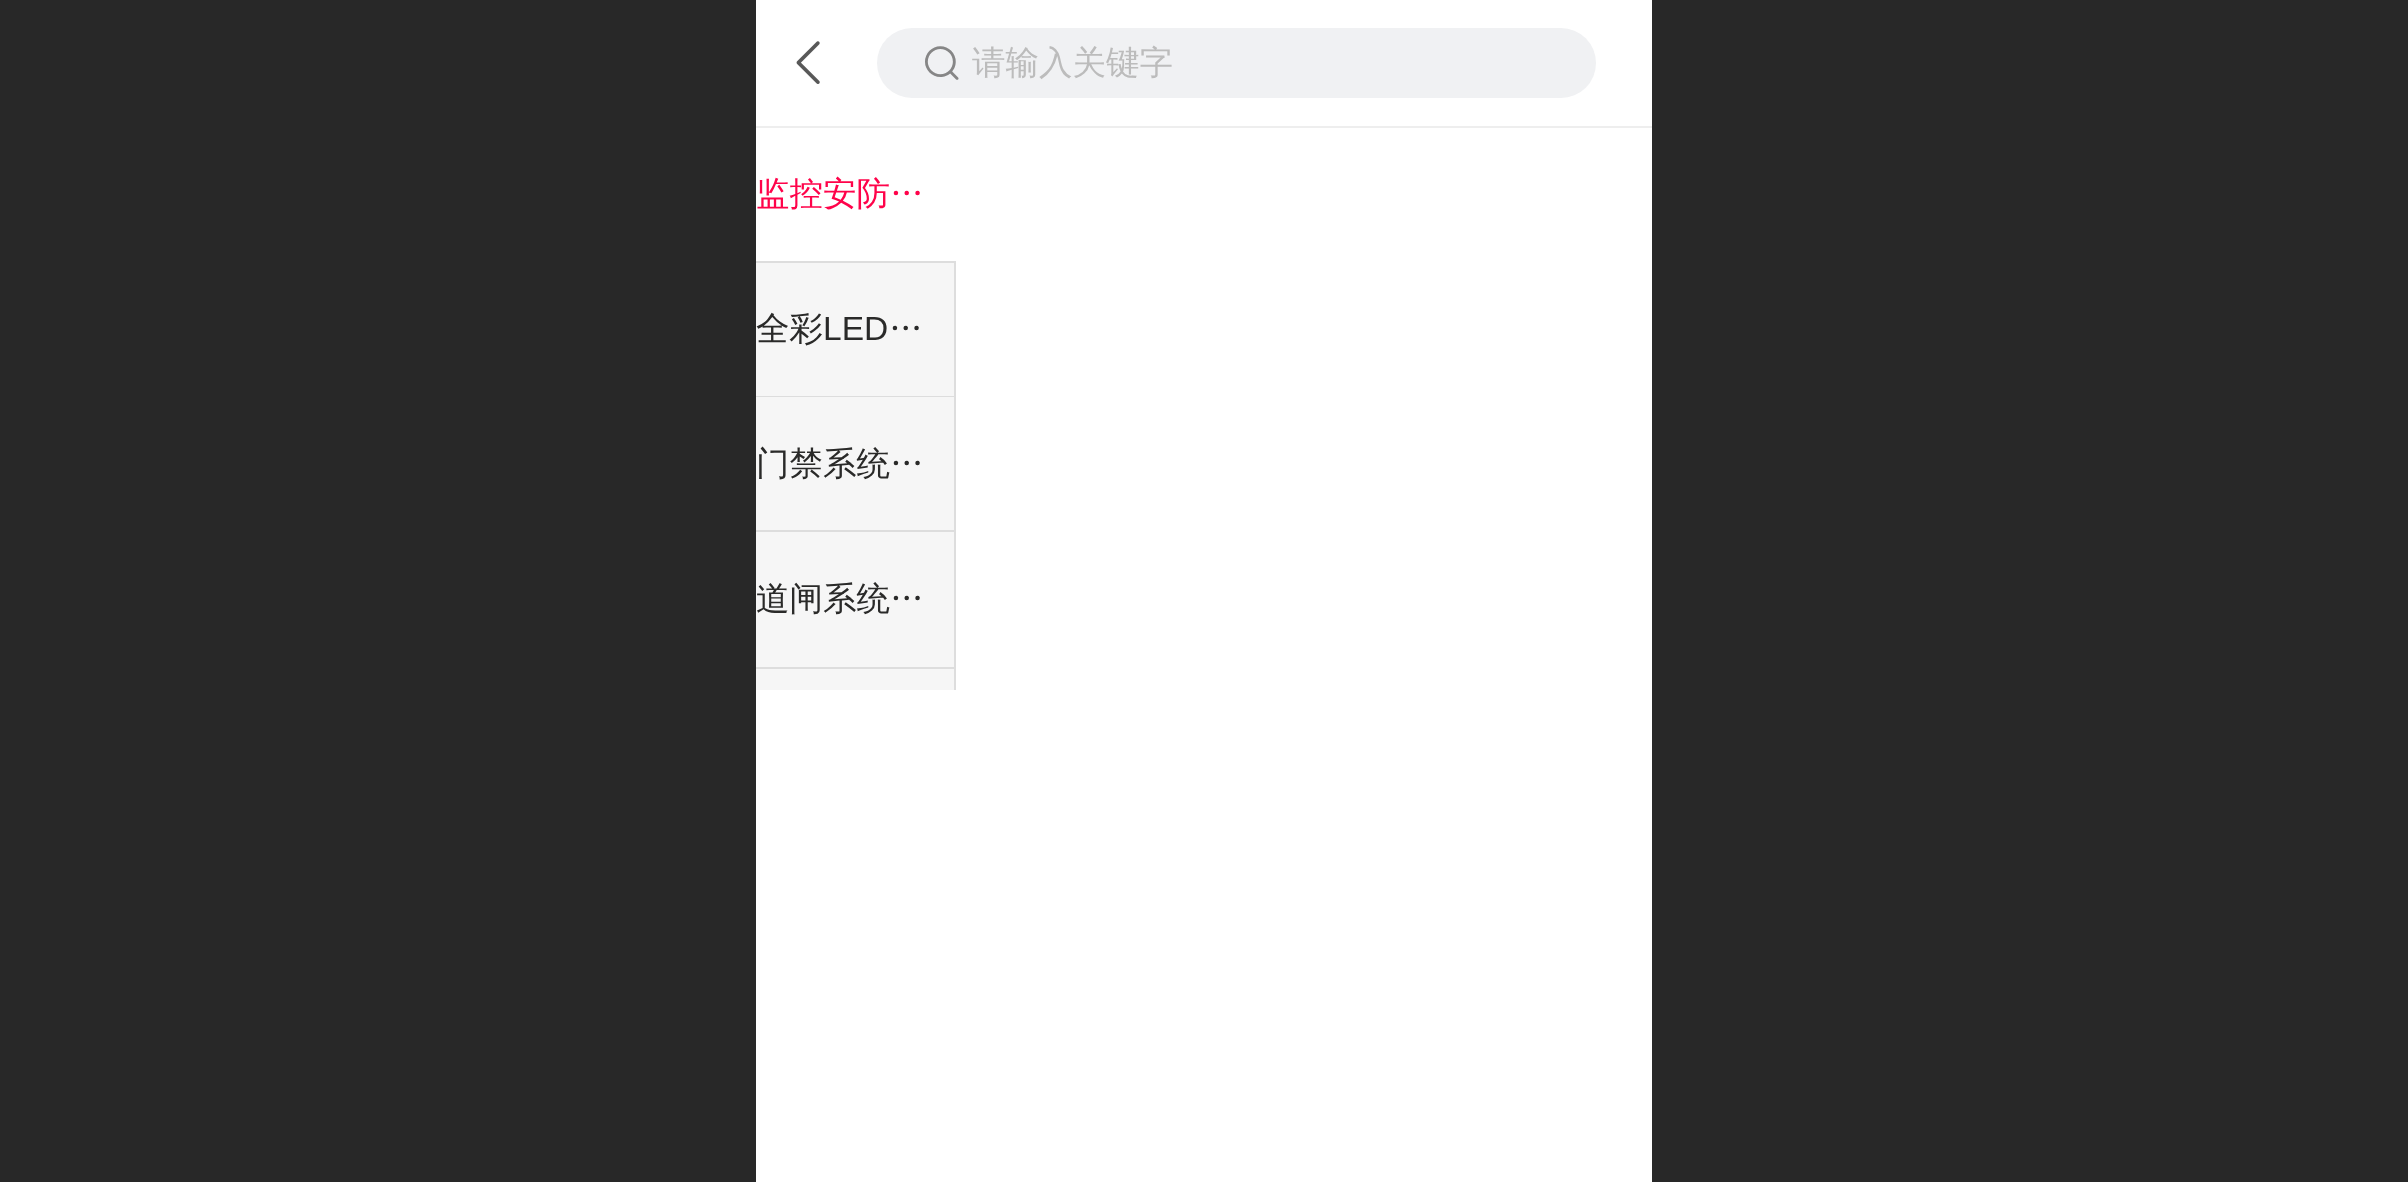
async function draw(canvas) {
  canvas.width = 2408;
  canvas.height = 1182;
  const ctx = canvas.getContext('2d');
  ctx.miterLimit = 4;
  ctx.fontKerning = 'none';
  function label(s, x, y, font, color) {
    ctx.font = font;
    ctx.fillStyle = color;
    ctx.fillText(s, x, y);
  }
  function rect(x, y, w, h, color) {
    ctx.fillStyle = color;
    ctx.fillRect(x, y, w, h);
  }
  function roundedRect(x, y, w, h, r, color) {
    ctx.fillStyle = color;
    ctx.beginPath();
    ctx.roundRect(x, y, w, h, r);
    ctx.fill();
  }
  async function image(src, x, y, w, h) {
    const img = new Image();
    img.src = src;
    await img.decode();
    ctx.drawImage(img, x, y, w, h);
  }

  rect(0, 0, 2408, 1182, '#fff');
  rect(0, 0, 756, 1182, '#282828');
  rect(756, 126, 896, 2, '#eee');
  await image('assets/img1.png', 796, 41, 24, 43);
  roundedRect(877, 28, 719, 70, 35, '#f0f1f3');
  label('򰊐', 925, 77, '33.5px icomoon', '#868686');
  label('请输入关键字', 972, 74, '500 33.5px WenQuanYi Zen Hei', '#bcbcbc');
  rect(954, 263, 2, 427, '#ddd');
  rect(756, 261, 200, 2, '#ddd');
  label('监控安防…', 756, 205, '500 33.5px WenQuanYi Zen Hei', '#ff034a');
  rect(756, 263, 198, 133, '#f6f6f6');
  rect(756, 396, 198, 1, '#ddd');
  label('全彩', 756, 340, '500 33.5px WenQuanYi Zen Hei', '#2a2a29');
  label('LED', 823, 340, '33.5px Liberation Sans', '#2a2a29');
  label('…', 889, 340, '500 33.5px WenQuanYi Zen Hei', '#2a2a29');
  rect(756, 397, 198, 133, '#f6f6f6');
  rect(756, 530, 198, 2, '#ddd');
  label('门禁系统…', 756, 475, '500 33.5px WenQuanYi Zen Hei', '#2a2a29');
  rect(756, 532, 198, 135, '#f6f6f6');
  rect(756, 667, 198, 2, '#ddd');
  label('道闸系统…', 756, 610, '500 33.5px WenQuanYi Zen Hei', '#2a2a29');
  rect(756, 669, 198, 21, '#f6f6f6');
  rect(1652, 0, 756, 1182, '#282828');
}

draw(document.querySelector('canvas'));
